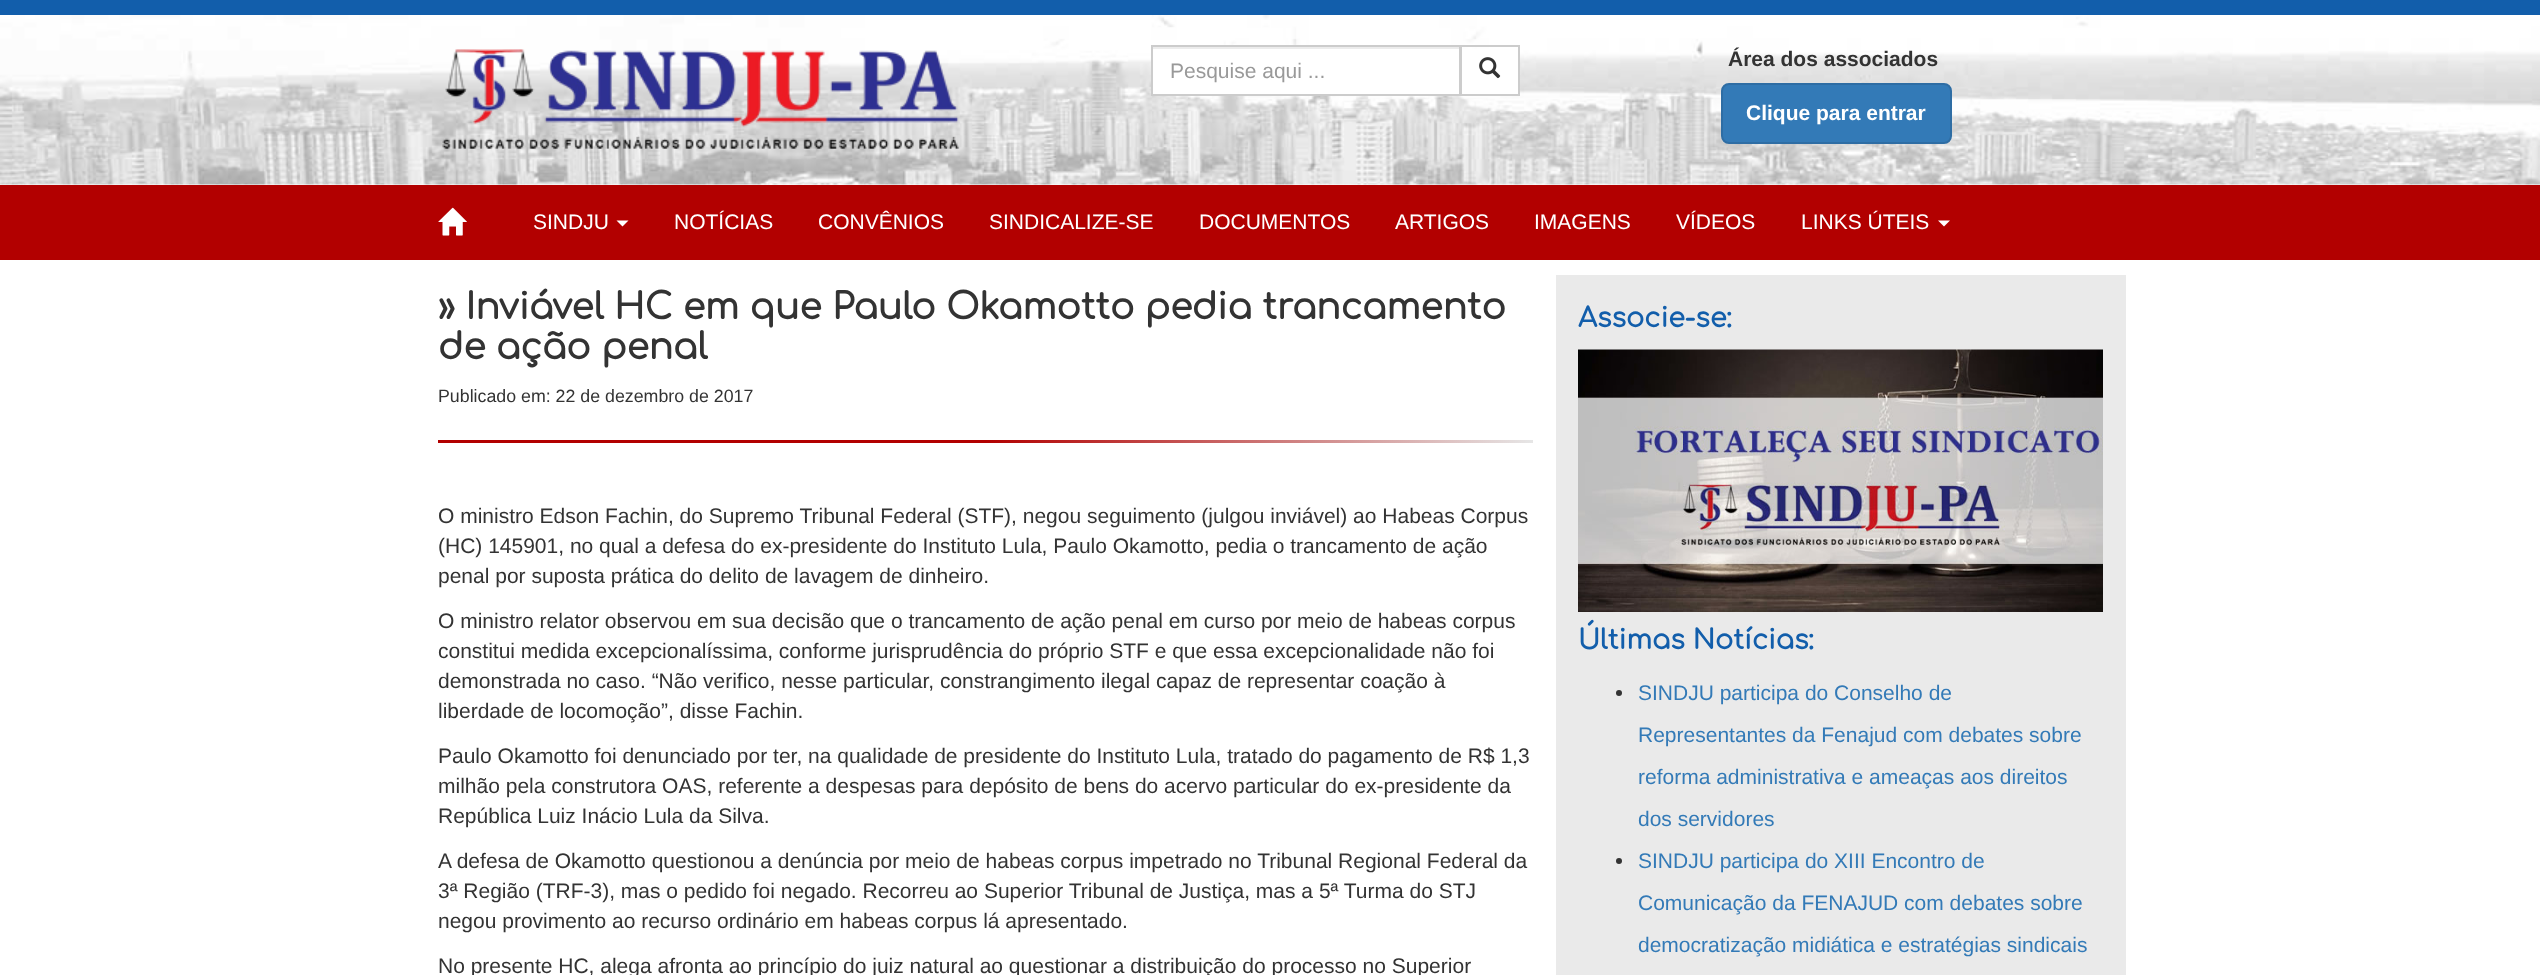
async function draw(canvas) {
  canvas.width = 2540;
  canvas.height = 975;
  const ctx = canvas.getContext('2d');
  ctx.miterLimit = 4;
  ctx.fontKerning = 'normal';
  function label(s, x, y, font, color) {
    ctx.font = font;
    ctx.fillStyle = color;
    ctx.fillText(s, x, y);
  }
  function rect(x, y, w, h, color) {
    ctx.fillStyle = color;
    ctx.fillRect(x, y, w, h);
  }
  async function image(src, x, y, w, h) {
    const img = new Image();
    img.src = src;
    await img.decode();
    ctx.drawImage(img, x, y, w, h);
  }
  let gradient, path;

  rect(0, 0, 2540, 975, '#fff');
  rect(0, 0, 2540, 15, '#125eab');
  await image('assets/img1.png', 0, 15, 2540, 170);
  await image('assets/img2.png', 442, 49, 517, 100);
  rect(1153, 49, 306, 45, '#fff');
  rect(1152, 47, 308, 2, '#ececec');
  ctx.strokeStyle = '#ccc';
  ctx.lineWidth = 2;
  ctx.strokeRect(1152, 46, 308, 49);
  label('Pesquise aqui ...', 1170, 78, '21px Liberation Sans', '#999');
  rect(1462, 49, 56, 45, '#fff');
  ctx.strokeRect(1461, 46, 58, 49);
  await image('assets/img3.png', 1479, 57, 22, 22);
  label('Área dos associados', 1728, 66, 'bold 21px Liberation Sans', '#333');
  ctx.fillStyle = '#337ab7';
  ctx.beginPath();
  ctx.roundRect(1722, 84, 229, 59, 7);
  ctx.fill();
  ctx.strokeStyle = '#2e6da4';
  ctx.stroke();
  label('Clique para entrar', 1746, 120, 'bold 21px Liberation Sans', '#fff');
  rect(0, 185, 2540, 75, '#b20000');
  await image('assets/img4.png', 438, 207, 29, 29);
  label('SINDJU', 533, 229, '21px Liberation Sans', '#fff');
  path = new Path2D('M616.5 220.5H628.5L622.5 226.5Z');
  ctx.fill(path);
  label('NOTÍCIAS', 674, 229, '21px Liberation Sans', '#fff');
  label('CONVÊNIOS', 818, 229, '21px Liberation Sans', '#fff');
  label('SINDICALIZE-SE', 989, 229, '21px Liberation Sans', '#fff');
  label('DOCUMENTOS', 1199, 229, '21px Liberation Sans', '#fff');
  label('ARTIGOS', 1395, 229, '21px Liberation Sans', '#fff');
  label('IMAGENS', 1534, 229, '21px Liberation Sans', '#fff');
  label('VÍDEOS', 1676, 229, '21px Liberation Sans', '#fff');
  label('LINKS ÚTEIS', 1801, 229, '21px Liberation Sans', '#fff');
  path = new Path2D('M1938 220.5H1950L1944 226.5Z');
  ctx.fill(path);
  label('» Inviável HC em que Paulo Okamotto pedia trancamento', 438, 319, 'bold 36px Comfortaa', '#333');
  label('de ação penal', 438, 359, 'bold 36px Comfortaa', '#333');
  label('Publicado em: 22 de dezembro de 2017', 438, 402, '17.8px Liberation Sans', '#333');
  gradient = ctx.createLinearGradient(438, 441, 1533, 441);
  gradient.addColorStop(0, '#b20000');
  gradient.addColorStop(0.5, '#b20000');
  gradient.addColorStop(1, '#e6e6e6');
  ctx.fillStyle = gradient;
  ctx.fillRect(438, 440, 1095, 3);
  label('O ministro Edson Fachin, do Supremo Tribunal Federal (STF), negou seguimento (julgou inviável) ao Habeas Corpus', 438, 523, '21px Liberation Sans', '#333');
  label('(HC) 145901, no qual a defesa do ex-presidente do Instituto Lula, Paulo Okamotto, pedia o trancamento de ação', 438, 553, '21px Liberation Sans', '#333');
  label('penal por suposta prática do delito de lavagem de dinheiro.', 438, 583, '21px Liberation Sans', '#333');
  label('O ministro relator observou em sua decisão que o trancamento de ação penal em curso por meio de habeas corpus', 438, 628, '21px Liberation Sans', '#333');
  label('constitui medida excepcionalíssima, conforme jurisprudência do próprio STF e que essa excepcionalidade não foi', 438, 658, '21px Liberation Sans', '#333');
  label('demonstrada no caso. “Não verifico, nesse particular, constrangimento ilegal capaz de representar coação à', 438, 688, '21px Liberation Sans', '#333');
  label('liberdade de locomoção”, disse Fachin.', 438, 718, '21px Liberation Sans', '#333');
  label('Paulo Okamotto foi denunciado por ter, na qualidade de presidente do Instituto Lula, tratado do pagamento de R$ 1,3', 438, 763, '21px Liberation Sans', '#333');
  label('milhão pela construtora OAS, referente a despesas para depósito de bens do acervo particular do ex-presidente da', 438, 793, '21px Liberation Sans', '#333');
  label('República Luiz Inácio Lula da Silva.', 438, 823, '21px Liberation Sans', '#333');
  label('A defesa de Okamotto questionou a denúncia por meio de habeas corpus impetrado no Tribunal Regional Federal da', 438, 868, '21px Liberation Sans', '#333');
  label('3ª Região (TRF-3), mas o pedido foi negado. Recorreu ao Superior Tribunal de Justiça, mas a 5ª Turma do STJ', 438, 898, '21px Liberation Sans', '#333');
  label('negou provimento ao recurso ordinário em habeas corpus lá apresentado.', 438, 928, '21px Liberation Sans', '#333');
  label('No presente HC, alega afronta ao princípio do juiz natural ao questionar a distribuição do processo no Superior', 438, 973, '21px Liberation Sans', '#333');
  rect(1556, 275, 570, 700, '#eaeaea');
  label('Associe-se:', 1578, 327, 'bold 27px Comfortaa', '#125eab');
  await image('assets/img5.png', 1578, 349, 525, 263);
  label('Últimas Notícias:', 1578, 649, 'bold 27px Comfortaa', '#125eab');
  ctx.fillStyle = '#333';
  ctx.beginPath();
  ctx.arc(1619, 693, 3, 0, 2 * Math.PI);
  ctx.fill();
  label('SINDJU participa do Conselho de', 1638, 700, '21px Liberation Sans', '#337ab7');
  label('Representantes da Fenajud com debates sobre', 1638, 742, '21px Liberation Sans', '#337ab7');
  label('reforma administrativa e ameaças aos direitos', 1638, 784, '21px Liberation Sans', '#337ab7');
  label('dos servidores', 1638, 826, '21px Liberation Sans', '#337ab7');
  ctx.fillStyle = '#333';
  ctx.beginPath();
  ctx.arc(1619, 861, 3, 0, 2 * Math.PI);
  ctx.fill();
  label('SINDJU participa do XIII Encontro de', 1638, 868, '21px Liberation Sans', '#337ab7');
  label('Comunicação da FENAJUD com debates sobre', 1638, 910, '21px Liberation Sans', '#337ab7');
  label('democratização midiática e estratégias sindicais', 1638, 952, '21px Liberation Sans', '#337ab7');
}

draw(document.querySelector('canvas'));
